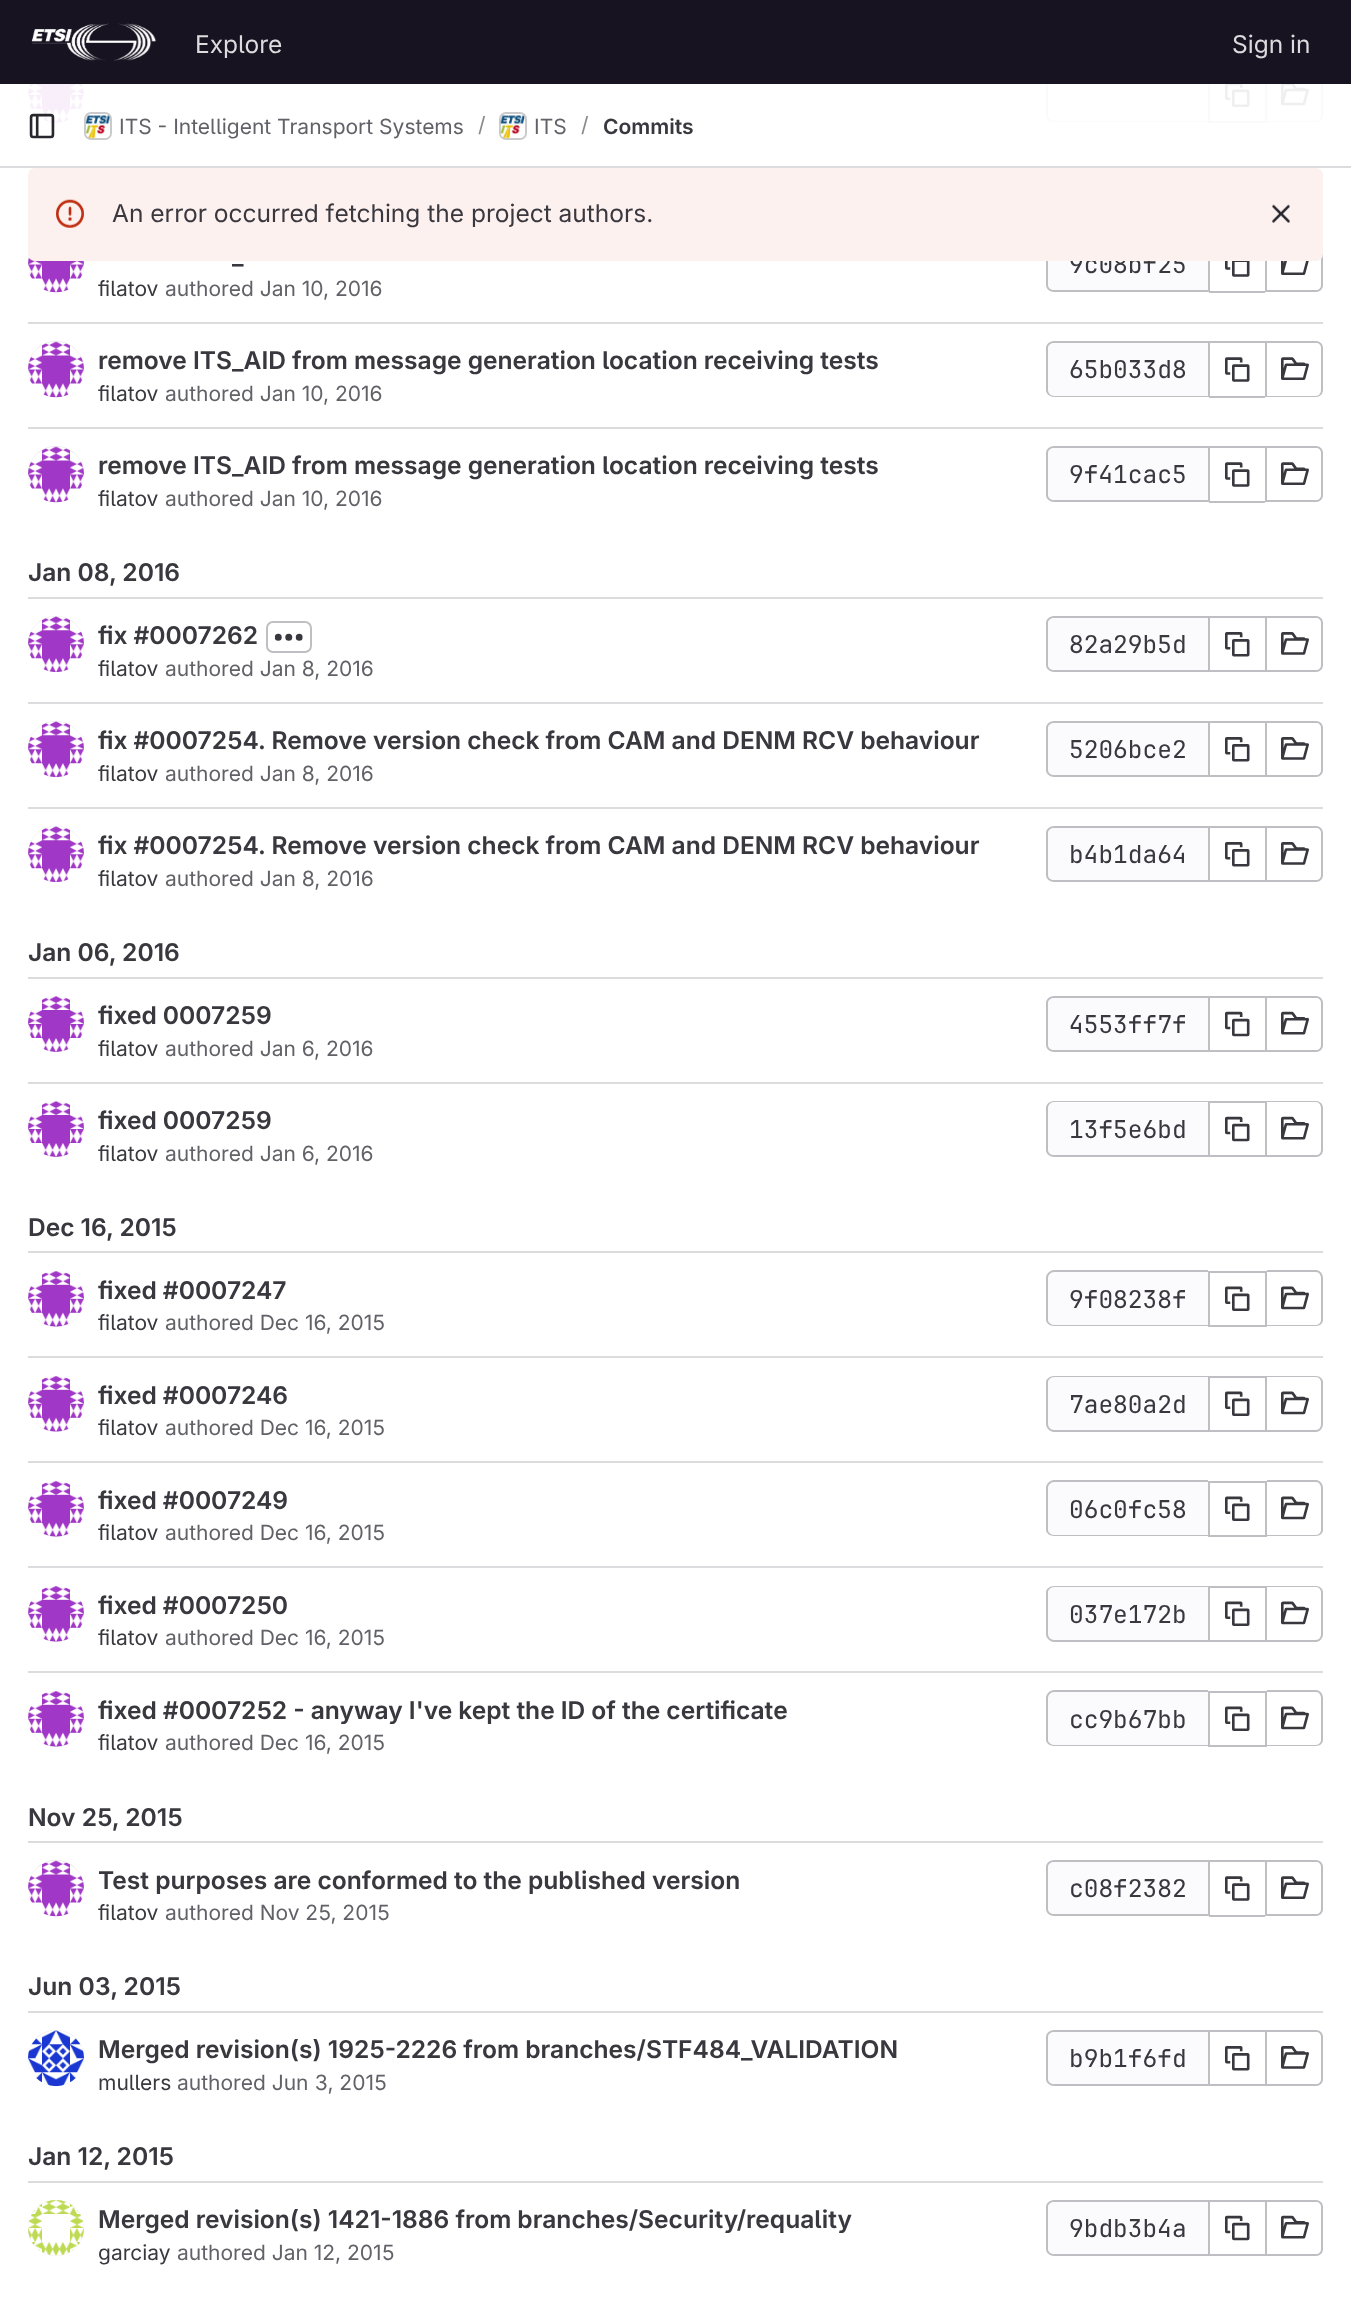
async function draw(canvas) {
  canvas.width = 1351;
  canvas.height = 2310;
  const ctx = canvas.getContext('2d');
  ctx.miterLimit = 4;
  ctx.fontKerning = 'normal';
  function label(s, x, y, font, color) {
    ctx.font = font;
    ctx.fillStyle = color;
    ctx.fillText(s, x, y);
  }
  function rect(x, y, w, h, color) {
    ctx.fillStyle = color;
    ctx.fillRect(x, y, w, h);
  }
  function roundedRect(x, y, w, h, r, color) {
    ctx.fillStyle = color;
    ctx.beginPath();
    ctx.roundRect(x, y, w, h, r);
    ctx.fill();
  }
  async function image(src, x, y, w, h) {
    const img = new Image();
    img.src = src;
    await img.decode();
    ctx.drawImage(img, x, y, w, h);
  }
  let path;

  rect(0, 0, 1351, 2310, '#fff');
  ctx.beginPath();
  ctx.arc(56, 95, 27, 0, 2 * Math.PI);
  ctx.strokeStyle = '#e8e7e9';
  ctx.lineWidth = 2;
  ctx.stroke();
  ctx.fillStyle = '#fbfafd';
  ctx.beginPath();
  ctx.roundRect(1048, 68, 160, 53, [5, 0, 0, 5]);
  ctx.fill();
  ctx.fillStyle = '#bfbfc3';
  path = new Path2D('M1054 66H1208V122H1054C1050 122 1046 119 1046 116V74C1046 70 1050 66 1054 66ZM1054 68H1208V121H1054C1051 121 1048 118 1048 116V74C1048 71 1051 68 1054 68Z');
  ctx.fill(path, 'evenodd');
  path = new Path2D('M1267 66H1316C1320 66 1323 70 1323 74V116C1323 119 1320 122 1316 122H1267ZM1267 68H1316C1319 68 1321 71 1321 74V116C1321 118 1319 121 1316 121H1267Z');
  ctx.fill(path, 'evenodd');
  rect(0, 0, 1351, 84, '#171321');
  await image('assets/img1.png', 31, 23, 126, 38);
  label('Explore', 195, 53, '24.5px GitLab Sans', '#dcdcde');
  label('Sign in', 1232, 53, '24.5px GitLab Sans', '#dcdcde');
  await image('assets/img7.png', 28, 84, 56, 39);
  rect(1209, 121, 56, 2, '#bfbfc3');
  rect(1208, 84, 2, 39, '#bfbfc3');
  await image('assets/img8.png', 1225, 84, 25, 23);
  rect(1265, 84, 2, 39, '#bfbfc3');
  await image('assets/img9.png', 1281, 84, 28, 22);
  rect(28, 84, 1295, 39, '#ffffffeb');
  rect(0, 166, 1351, 2, '#dcdcde');
  await image('assets/img2.png', 29, 113, 26, 26);
  ctx.beginPath();
  ctx.roundRect(85, 113, 26, 26, 6);
  ctx.strokeStyle = '#dcdcde';
  ctx.stroke();
  await image('assets/img3.png', 85, 115, 25, 24);
  ctx.beginPath();
  ctx.roundRect(85, 113, 26, 26, 6);
  ctx.strokeStyle = '#05050614';
  ctx.stroke();
  label('ITS - Intelligent Transport Systems', 119, 134, '21px GitLab Sans', '#626168');
  label('/', 478, 132, '21px GitLab Sans', '#89888d');
  ctx.beginPath();
  ctx.roundRect(500, 113, 26, 26, 6);
  ctx.strokeStyle = '#dcdcde';
  ctx.stroke();
  await image('assets/img4.png', 500, 115, 25, 24);
  ctx.beginPath();
  ctx.roundRect(500, 113, 26, 26, 6);
  ctx.strokeStyle = '#05050614';
  ctx.stroke();
  label('ITS', 534, 134, '21px GitLab Sans', '#626168');
  label('/', 581, 132, '21px GitLab Sans', '#89888d');
  label('Commits', 603, 134, '600 21px GitLab Sans', '#3a383f');
  ctx.beginPath();
  ctx.arc(56, 264, 27, 0, 2 * Math.PI);
  ctx.strokeStyle = '#e8e7e9';
  ctx.stroke();
  await image('assets/img10.png', 28, 257, 56, 36);
  ctx.fillStyle = '#fbfafd';
  ctx.beginPath();
  ctx.roundRect(1048, 238, 160, 53, [5, 0, 0, 5]);
  ctx.fill();
  ctx.fillStyle = '#bfbfc3';
  path = new Path2D('M1054 236H1208V292H1054C1050 292 1046 289 1046 285V243C1046 239 1050 236 1054 236ZM1054 238H1208V290H1054C1051 290 1048 288 1048 285V243C1048 240 1051 238 1054 238Z');
  ctx.fill(path, 'evenodd');
  label('9c08bf25', 1069, 273, '24.5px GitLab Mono', '#3a383f');
  ctx.fillStyle = '#bfbfc3';
  path = new Path2D('M1267 236H1316C1320 236 1323 239 1323 243V285C1323 289 1320 292 1316 292H1267ZM1267 238H1316C1319 238 1321 240 1321 243V285C1321 288 1319 290 1316 290H1267Z');
  ctx.fill(path, 'evenodd');
  roundedRect(28, 168, 1295, 93, 7, '#fcf1ef');
  await image('assets/img5.png', 56, 199, 28, 29);
  label('An error occurred fetching the project authors.', 112, 222, '24.5px GitLab Sans', '#3a383f');
  await image('assets/img6.png', 1272, 204, 18, 19);
  rect(28, 322, 1295, 2, '#dcdcde');
  label('_', 232, 264, '600 24.5px GitLab Sans', '#3a383f');
  label('filatov', 98, 296, '21px GitLab Sans', '#3a383f');
  label('authored Jan 10, 2016', 165, 296, '21px GitLab Sans', '#626168');
  rect(1209, 291, 56, 2, '#bfbfc3');
  rect(1208, 261, 2, 31, '#bfbfc3');
  await image('assets/img11.png', 1225, 261, 25, 16);
  rect(1265, 261, 2, 31, '#bfbfc3');
  await image('assets/img12.png', 1281, 261, 28, 14);
  rect(28, 427, 1295, 2, '#dcdcde');
  ctx.beginPath();
  ctx.arc(56, 369, 27, 0, 2 * Math.PI);
  ctx.stroke();
  await image('assets/img13.png', 28, 341, 56, 57);
  label('remove ITS_AID from message generation location receiving tests', 98, 369, '600 24.5px GitLab Sans', '#3a383f');
  label('filatov', 98, 401, '21px GitLab Sans', '#3a383f');
  label('authored Jan 10, 2016', 165, 401, '21px GitLab Sans', '#626168');
  ctx.fillStyle = '#fbfafd';
  ctx.beginPath();
  ctx.roundRect(1048, 343, 160, 53, [5, 0, 0, 5]);
  ctx.fill();
  ctx.fillStyle = '#bfbfc3';
  path = new Path2D('M1054 341H1208V397H1054C1050 397 1046 394 1046 390V348C1046 344 1050 341 1054 341ZM1054 343H1208V396H1054C1051 396 1048 393 1048 390V348C1048 345 1051 343 1054 343Z');
  ctx.fill(path, 'evenodd');
  label('65b033d8', 1069, 378, '24.5px GitLab Mono', '#3a383f');
  rect(1209, 341, 56, 2, '#bfbfc3');
  rect(1209, 396, 56, 2, '#bfbfc3');
  rect(1208, 341, 2, 56, '#bfbfc3');
  await image('assets/img14.png', 1225, 357, 25, 25);
  path = new Path2D('M1267 341H1316C1320 341 1323 344 1323 348V390C1323 394 1320 397 1316 397H1267ZM1267 343H1316C1319 343 1321 345 1321 348V390C1321 393 1319 396 1316 396H1267Z');
  ctx.fill(path, 'evenodd');
  rect(1265, 341, 2, 56, '#bfbfc3');
  await image('assets/img15.png', 1281, 357, 28, 23);
  ctx.beginPath();
  ctx.arc(56, 474, 27, 0, 2 * Math.PI);
  ctx.stroke();
  await image('assets/img16.png', 28, 446, 56, 57);
  label('remove ITS_AID from message generation location receiving tests', 98, 474, '600 24.5px GitLab Sans', '#3a383f');
  label('filatov', 98, 506, '21px GitLab Sans', '#3a383f');
  label('authored Jan 10, 2016', 165, 506, '21px GitLab Sans', '#626168');
  ctx.fillStyle = '#fbfafd';
  ctx.beginPath();
  ctx.roundRect(1048, 448, 160, 53, [5, 0, 0, 5]);
  ctx.fill();
  ctx.fillStyle = '#bfbfc3';
  path = new Path2D('M1054 446H1208V502H1054C1050 502 1046 499 1046 495V453C1046 449 1050 446 1054 446ZM1054 448H1208V500H1054C1051 500 1048 498 1048 495V453C1048 450 1051 448 1054 448Z');
  ctx.fill(path, 'evenodd');
  label('9f41cac5', 1069, 483, '24.5px GitLab Mono', '#3a383f');
  rect(1209, 446, 56, 2, '#bfbfc3');
  rect(1209, 501, 56, 2, '#bfbfc3');
  rect(1208, 446, 2, 56, '#bfbfc3');
  await image('assets/img14.png', 1225, 462, 25, 25);
  path = new Path2D('M1267 446H1316C1320 446 1323 449 1323 453V495C1323 499 1320 502 1316 502H1267ZM1267 448H1316C1319 448 1321 450 1321 453V495C1321 498 1319 500 1316 500H1267Z');
  ctx.fill(path, 'evenodd');
  rect(1265, 446, 2, 56, '#bfbfc3');
  await image('assets/img15.png', 1281, 462, 28, 23);
  label('Jan 08, 2016', 28, 581, '600 24.5px GitLab Sans', '#3a383f');
  rect(28, 597, 1295, 2, '#dcdcde');
  rect(28, 702, 1295, 2, '#dcdcde');
  ctx.beginPath();
  ctx.arc(56, 644, 27, 0, 2 * Math.PI);
  ctx.stroke();
  await image('assets/img17.png', 28, 616, 56, 57);
  label('fix #0007262', 98, 644, '600 24.5px GitLab Sans', '#3a383f');
  ctx.beginPath();
  ctx.roundRect(267, 622, 44, 30, 6);
  ctx.strokeStyle = '#bfbfc3';
  ctx.stroke();
  await image('assets/img18.png', 274, 633, 29, 8);
  label('filatov', 98, 676, '21px GitLab Sans', '#3a383f');
  label('authored Jan 8, 2016', 165, 676, '21px GitLab Sans', '#626168');
  ctx.fillStyle = '#fbfafd';
  ctx.beginPath();
  ctx.roundRect(1048, 618, 160, 52, [5, 0, 0, 5]);
  ctx.fill();
  ctx.fillStyle = '#bfbfc3';
  path = new Path2D('M1054 616H1208V672H1054C1050 672 1046 669 1046 665V623C1046 619 1050 616 1054 616ZM1054 618H1208V670H1054C1051 670 1048 668 1048 665V623C1048 620 1051 618 1054 618Z');
  ctx.fill(path, 'evenodd');
  label('82a29b5d', 1069, 653, '24.5px GitLab Mono', '#3a383f');
  rect(1209, 616, 56, 2, '#bfbfc3');
  rect(1209, 670, 56, 2, '#bfbfc3');
  rect(1208, 616, 2, 56, '#bfbfc3');
  await image('assets/img19.png', 1225, 632, 25, 25);
  path = new Path2D('M1267 616H1316C1320 616 1323 619 1323 623V665C1323 669 1320 672 1316 672H1267ZM1267 618H1316C1319 618 1321 620 1321 623V665C1321 668 1319 670 1316 670H1267Z');
  ctx.fill(path, 'evenodd');
  rect(1265, 616, 2, 56, '#bfbfc3');
  await image('assets/img20.png', 1281, 632, 28, 23);
  rect(28, 807, 1295, 2, '#dcdcde');
  ctx.beginPath();
  ctx.arc(56, 749, 27, 0, 2 * Math.PI);
  ctx.strokeStyle = '#e8e7e9';
  ctx.stroke();
  await image('assets/img21.png', 28, 721, 56, 57);
  label('fix #0007254. Remove version check from CAM and DENM RCV behaviour', 98, 749, '600 24.5px GitLab Sans', '#3a383f');
  label('filatov', 98, 781, '21px GitLab Sans', '#3a383f');
  label('authored Jan 8, 2016', 165, 781, '21px GitLab Sans', '#626168');
  ctx.fillStyle = '#fbfafd';
  ctx.beginPath();
  ctx.roundRect(1048, 723, 160, 52, [5, 0, 0, 5]);
  ctx.fill();
  ctx.fillStyle = '#bfbfc3';
  path = new Path2D('M1054 721H1208V777H1054C1050 777 1046 774 1046 770V728C1046 724 1050 721 1054 721ZM1054 723H1208V775H1054C1051 775 1048 773 1048 770V728C1048 725 1051 723 1054 723Z');
  ctx.fill(path, 'evenodd');
  label('5206bce2', 1069, 758, '24.5px GitLab Mono', '#3a383f');
  rect(1209, 721, 56, 2, '#bfbfc3');
  rect(1209, 775, 56, 2, '#bfbfc3');
  rect(1208, 721, 2, 56, '#bfbfc3');
  await image('assets/img19.png', 1225, 737, 25, 25);
  path = new Path2D('M1267 721H1316C1320 721 1323 724 1323 728V770C1323 774 1320 777 1316 777H1267ZM1267 723H1316C1319 723 1321 725 1321 728V770C1321 773 1319 775 1316 775H1267Z');
  ctx.fill(path, 'evenodd');
  rect(1265, 721, 2, 56, '#bfbfc3');
  await image('assets/img22.png', 1281, 737, 28, 23);
  ctx.beginPath();
  ctx.arc(56, 854, 27, 0, 2 * Math.PI);
  ctx.stroke();
  await image('assets/img17.png', 28, 826, 56, 57);
  label('fix #0007254. Remove version check from CAM and DENM RCV behaviour', 98, 854, '600 24.5px GitLab Sans', '#3a383f');
  label('filatov', 98, 886, '21px GitLab Sans', '#3a383f');
  label('authored Jan 8, 2016', 165, 886, '21px GitLab Sans', '#626168');
  ctx.fillStyle = '#fbfafd';
  ctx.beginPath();
  ctx.roundRect(1048, 828, 160, 52, [5, 0, 0, 5]);
  ctx.fill();
  ctx.fillStyle = '#bfbfc3';
  path = new Path2D('M1054 826H1208V882H1054C1050 882 1046 879 1046 875V833C1046 829 1050 826 1054 826ZM1054 828H1208V880H1054C1051 880 1048 878 1048 875V833C1048 830 1051 828 1054 828Z');
  ctx.fill(path, 'evenodd');
  label('b4b1da64', 1069, 863, '24.5px GitLab Mono', '#3a383f');
  rect(1209, 826, 56, 2, '#bfbfc3');
  rect(1209, 880, 56, 2, '#bfbfc3');
  rect(1208, 826, 2, 56, '#bfbfc3');
  await image('assets/img19.png', 1225, 842, 25, 25);
  path = new Path2D('M1267 826H1316C1320 826 1323 829 1323 833V875C1323 879 1320 882 1316 882H1267ZM1267 828H1316C1319 828 1321 830 1321 833V875C1321 878 1319 880 1316 880H1267Z');
  ctx.fill(path, 'evenodd');
  rect(1265, 826, 2, 56, '#bfbfc3');
  await image('assets/img20.png', 1281, 842, 28, 23);
  label('Jan 06, 2016', 28, 961, '600 24.5px GitLab Sans', '#3a383f');
  rect(28, 977, 1295, 2, '#dcdcde');
  rect(28, 1082, 1295, 2, '#dcdcde');
  ctx.beginPath();
  ctx.arc(56, 1024, 27, 0, 2 * Math.PI);
  ctx.stroke();
  await image('assets/img23.png', 28, 996, 56, 56);
  label('fixed 0007259', 98, 1024, '600 24.5px GitLab Sans', '#3a383f');
  label('filatov', 98, 1056, '21px GitLab Sans', '#3a383f');
  label('authored Jan 6, 2016', 165, 1056, '21px GitLab Sans', '#626168');
  ctx.fillStyle = '#fbfafd';
  ctx.beginPath();
  ctx.roundRect(1048, 998, 160, 52, [5, 0, 0, 5]);
  ctx.fill();
  ctx.fillStyle = '#bfbfc3';
  path = new Path2D('M1054 996H1208V1052H1054C1050 1052 1046 1049 1046 1045V1003C1046 999 1050 996 1054 996ZM1054 998H1208V1050H1054C1051 1050 1048 1048 1048 1045V1003C1048 1000 1051 998 1054 998Z');
  ctx.fill(path, 'evenodd');
  label('4553ff7f', 1069, 1033, '24.5px GitLab Mono', '#3a383f');
  rect(1209, 996, 56, 2, '#bfbfc3');
  rect(1209, 1050, 56, 2, '#bfbfc3');
  rect(1208, 996, 2, 56, '#bfbfc3');
  await image('assets/img24.png', 1225, 1011, 25, 26);
  path = new Path2D('M1267 996H1316C1320 996 1323 999 1323 1003V1045C1323 1049 1320 1052 1316 1052H1267ZM1267 998H1316C1319 998 1321 1000 1321 1003V1045C1321 1048 1319 1050 1316 1050H1267Z');
  ctx.fill(path, 'evenodd');
  rect(1265, 996, 2, 56, '#bfbfc3');
  await image('assets/img25.png', 1281, 1011, 28, 24);
  ctx.beginPath();
  ctx.arc(56, 1129, 27, 0, 2 * Math.PI);
  ctx.stroke();
  await image('assets/img26.png', 28, 1101, 56, 56);
  label('fixed 0007259', 98, 1129, '600 24.5px GitLab Sans', '#3a383f');
  label('filatov', 98, 1161, '21px GitLab Sans', '#3a383f');
  label('authored Jan 6, 2016', 165, 1161, '21px GitLab Sans', '#626168');
  ctx.fillStyle = '#fbfafd';
  ctx.beginPath();
  ctx.roundRect(1048, 1103, 160, 52, [5, 0, 0, 5]);
  ctx.fill();
  ctx.fillStyle = '#bfbfc3';
  path = new Path2D('M1054 1101H1208V1157H1054C1050 1157 1046 1154 1046 1150V1108C1046 1104 1050 1101 1054 1101ZM1054 1102H1208V1155H1054C1051 1155 1048 1153 1048 1150V1108C1048 1105 1051 1102 1054 1102Z');
  ctx.fill(path, 'evenodd');
  label('13f5e6bd', 1069, 1138, '24.5px GitLab Mono', '#3a383f');
  rect(1209, 1101, 56, 2, '#bfbfc3');
  rect(1209, 1155, 56, 2, '#bfbfc3');
  rect(1208, 1101, 2, 56, '#bfbfc3');
  await image('assets/img24.png', 1225, 1116, 25, 26);
  path = new Path2D('M1267 1101H1316C1320 1101 1323 1104 1323 1108V1150C1323 1154 1320 1157 1316 1157H1267ZM1267 1102H1316C1319 1102 1321 1105 1321 1108V1150C1321 1153 1319 1155 1316 1155H1267Z');
  ctx.fill(path, 'evenodd');
  rect(1265, 1101, 2, 56, '#bfbfc3');
  await image('assets/img27.png', 1281, 1116, 28, 24);
  label('Dec 16, 2015', 28, 1236, '600 24.5px GitLab Sans', '#3a383f');
  rect(28, 1251, 1295, 2, '#dcdcde');
  rect(28, 1356, 1295, 2, '#dcdcde');
  ctx.beginPath();
  ctx.arc(56, 1299, 27, 0, 2 * Math.PI);
  ctx.stroke();
  await image('assets/img28.png', 28, 1270, 56, 57);
  label('fixed #0007247', 98, 1299, '600 24.5px GitLab Sans', '#3a383f');
  label('filatov', 98, 1330, '21px GitLab Sans', '#3a383f');
  label('authored Dec 16, 2015', 165, 1330, '21px GitLab Sans', '#626168');
  ctx.fillStyle = '#fbfafd';
  ctx.beginPath();
  ctx.roundRect(1048, 1272, 160, 53, [5, 0, 0, 5]);
  ctx.fill();
  ctx.fillStyle = '#bfbfc3';
  path = new Path2D('M1054 1270H1208V1326H1054C1050 1326 1046 1323 1046 1320V1278C1046 1274 1050 1270 1054 1270ZM1054 1272H1208V1325H1054C1051 1325 1048 1322 1048 1320V1278C1048 1275 1051 1272 1054 1272Z');
  ctx.fill(path, 'evenodd');
  label('9f08238f', 1069, 1308, '24.5px GitLab Mono', '#3a383f');
  rect(1209, 1271, 56, 2, '#bfbfc3');
  rect(1209, 1325, 56, 2, '#bfbfc3');
  rect(1208, 1271, 2, 56, '#bfbfc3');
  await image('assets/img29.png', 1225, 1286, 25, 25);
  path = new Path2D('M1267 1270H1316C1320 1270 1323 1274 1323 1278V1320C1323 1323 1320 1326 1316 1326H1267ZM1267 1272H1316C1319 1272 1321 1275 1321 1278V1320C1321 1322 1319 1325 1316 1325H1267Z');
  ctx.fill(path, 'evenodd');
  rect(1265, 1271, 2, 56, '#bfbfc3');
  await image('assets/img30.png', 1281, 1286, 28, 24);
  rect(28, 1461, 1295, 2, '#dcdcde');
  ctx.beginPath();
  ctx.arc(56, 1404, 27, 0, 2 * Math.PI);
  ctx.stroke();
  await image('assets/img28.png', 28, 1375, 56, 57);
  label('fixed #0007246', 98, 1404, '600 24.5px GitLab Sans', '#3a383f');
  label('filatov', 98, 1435, '21px GitLab Sans', '#3a383f');
  label('authored Dec 16, 2015', 165, 1435, '21px GitLab Sans', '#626168');
  ctx.fillStyle = '#fbfafd';
  ctx.beginPath();
  ctx.roundRect(1048, 1377, 160, 53, [5, 0, 0, 5]);
  ctx.fill();
  ctx.fillStyle = '#bfbfc3';
  path = new Path2D('M1054 1376H1208V1432H1054C1050 1432 1046 1428 1046 1424V1382C1046 1379 1050 1376 1054 1376ZM1054 1377H1208V1430H1054C1051 1430 1048 1427 1048 1424V1382C1048 1380 1051 1377 1054 1377Z');
  ctx.fill(path, 'evenodd');
  label('7ae80a2d', 1069, 1413, '24.5px GitLab Mono', '#3a383f');
  rect(1209, 1376, 56, 2, '#bfbfc3');
  rect(1209, 1430, 56, 2, '#bfbfc3');
  rect(1208, 1376, 2, 56, '#bfbfc3');
  await image('assets/img29.png', 1225, 1391, 25, 25);
  path = new Path2D('M1267 1376H1316C1320 1376 1323 1379 1323 1382V1424C1323 1428 1320 1432 1316 1432H1267ZM1267 1377H1316C1319 1377 1321 1380 1321 1382V1424C1321 1427 1319 1430 1316 1430H1267Z');
  ctx.fill(path, 'evenodd');
  rect(1265, 1376, 2, 56, '#bfbfc3');
  await image('assets/img31.png', 1281, 1391, 28, 24);
  rect(28, 1566, 1295, 2, '#dcdcde');
  ctx.beginPath();
  ctx.arc(56, 1509, 27, 0, 2 * Math.PI);
  ctx.stroke();
  await image('assets/img32.png', 28, 1480, 56, 57);
  label('fixed #0007249', 98, 1509, '600 24.5px GitLab Sans', '#3a383f');
  label('filatov', 98, 1540, '21px GitLab Sans', '#3a383f');
  label('authored Dec 16, 2015', 165, 1540, '21px GitLab Sans', '#626168');
  ctx.fillStyle = '#fbfafd';
  ctx.beginPath();
  ctx.roundRect(1048, 1482, 160, 53, [5, 0, 0, 5]);
  ctx.fill();
  ctx.fillStyle = '#bfbfc3';
  path = new Path2D('M1054 1480H1208V1536H1054C1050 1536 1046 1533 1046 1530V1488C1046 1484 1050 1480 1054 1480ZM1054 1482H1208V1535H1054C1051 1535 1048 1532 1048 1530V1488C1048 1485 1051 1482 1054 1482Z');
  ctx.fill(path, 'evenodd');
  label('06c0fc58', 1069, 1518, '24.5px GitLab Mono', '#3a383f');
  rect(1209, 1481, 56, 2, '#bfbfc3');
  rect(1209, 1535, 56, 2, '#bfbfc3');
  rect(1208, 1481, 2, 56, '#bfbfc3');
  await image('assets/img29.png', 1225, 1496, 25, 25);
  path = new Path2D('M1267 1480H1316C1320 1480 1323 1484 1323 1488V1530C1323 1533 1320 1536 1316 1536H1267ZM1267 1482H1316C1319 1482 1321 1485 1321 1488V1530C1321 1532 1319 1535 1316 1535H1267Z');
  ctx.fill(path, 'evenodd');
  rect(1265, 1481, 2, 56, '#bfbfc3');
  await image('assets/img33.png', 1281, 1496, 28, 24);
  rect(28, 1671, 1295, 2, '#dcdcde');
  ctx.beginPath();
  ctx.arc(56, 1614, 27, 0, 2 * Math.PI);
  ctx.stroke();
  await image('assets/img28.png', 28, 1585, 56, 57);
  label('fixed #0007250', 98, 1614, '600 24.5px GitLab Sans', '#3a383f');
  label('filatov', 98, 1645, '21px GitLab Sans', '#3a383f');
  label('authored Dec 16, 2015', 165, 1645, '21px GitLab Sans', '#626168');
  ctx.fillStyle = '#fbfafd';
  ctx.beginPath();
  ctx.roundRect(1048, 1587, 160, 53, [5, 0, 0, 5]);
  ctx.fill();
  ctx.fillStyle = '#bfbfc3';
  path = new Path2D('M1054 1586H1208V1642H1054C1050 1642 1046 1638 1046 1634V1592C1046 1589 1050 1586 1054 1586ZM1054 1587H1208V1640H1054C1051 1640 1048 1637 1048 1634V1592C1048 1590 1051 1587 1054 1587Z');
  ctx.fill(path, 'evenodd');
  label('037e172b', 1069, 1623, '24.5px GitLab Mono', '#3a383f');
  rect(1209, 1586, 56, 2, '#bfbfc3');
  rect(1209, 1640, 56, 2, '#bfbfc3');
  rect(1208, 1586, 2, 56, '#bfbfc3');
  await image('assets/img29.png', 1225, 1601, 25, 25);
  path = new Path2D('M1267 1586H1316C1320 1586 1323 1589 1323 1592V1634C1323 1638 1320 1642 1316 1642H1267ZM1267 1587H1316C1319 1587 1321 1590 1321 1592V1634C1321 1637 1319 1640 1316 1640H1267Z');
  ctx.fill(path, 'evenodd');
  rect(1265, 1586, 2, 56, '#bfbfc3');
  await image('assets/img31.png', 1281, 1601, 28, 24);
  ctx.beginPath();
  ctx.arc(56, 1719, 27, 0, 2 * Math.PI);
  ctx.stroke();
  await image('assets/img28.png', 28, 1690, 56, 57);
  label('fixed #0007252 - anyway I\'ve kept the ID of the certificate', 98, 1719, '600 24.5px GitLab Sans', '#3a383f');
  label('filatov', 98, 1750, '21px GitLab Sans', '#3a383f');
  label('authored Dec 16, 2015', 165, 1750, '21px GitLab Sans', '#626168');
  ctx.fillStyle = '#fbfafd';
  ctx.beginPath();
  ctx.roundRect(1048, 1692, 160, 53, [5, 0, 0, 5]);
  ctx.fill();
  ctx.fillStyle = '#bfbfc3';
  path = new Path2D('M1054 1690H1208V1746H1054C1050 1746 1046 1743 1046 1740V1698C1046 1694 1050 1690 1054 1690ZM1054 1692H1208V1745H1054C1051 1745 1048 1742 1048 1740V1698C1048 1695 1051 1692 1054 1692Z');
  ctx.fill(path, 'evenodd');
  label('cc9b67bb', 1069, 1728, '24.5px GitLab Mono', '#3a383f');
  rect(1209, 1691, 56, 2, '#bfbfc3');
  rect(1209, 1745, 56, 2, '#bfbfc3');
  rect(1208, 1691, 2, 56, '#bfbfc3');
  await image('assets/img29.png', 1225, 1706, 25, 25);
  path = new Path2D('M1267 1690H1316C1320 1690 1323 1694 1323 1698V1740C1323 1743 1320 1746 1316 1746H1267ZM1267 1692H1316C1319 1692 1321 1695 1321 1698V1740C1321 1742 1319 1745 1316 1745H1267Z');
  ctx.fill(path, 'evenodd');
  rect(1265, 1691, 2, 56, '#bfbfc3');
  await image('assets/img31.png', 1281, 1706, 28, 24);
  label('Nov 25, 2015', 28, 1826, '600 24.5px GitLab Sans', '#3a383f');
  rect(28, 1841, 1295, 2, '#dcdcde');
  ctx.beginPath();
  ctx.arc(56, 1888, 27, 0, 2 * Math.PI);
  ctx.stroke();
  await image('assets/img13.png', 28, 1860, 56, 57);
  label('Test purposes are conformed to the published version', 98, 1889, '600 24.5px GitLab Sans', '#3a383f');
  label('filatov', 98, 1920, '21px GitLab Sans', '#3a383f');
  label('authored Nov 25, 2015', 165, 1920, '21px GitLab Sans', '#626168');
  ctx.fillStyle = '#fbfafd';
  ctx.beginPath();
  ctx.roundRect(1048, 1862, 160, 53, [5, 0, 0, 5]);
  ctx.fill();
  ctx.fillStyle = '#bfbfc3';
  path = new Path2D('M1054 1860H1208V1916H1054C1050 1916 1046 1913 1046 1909V1867C1046 1863 1050 1860 1054 1860ZM1054 1862H1208V1914H1054C1051 1914 1048 1912 1048 1909V1867C1048 1864 1051 1862 1054 1862Z');
  ctx.fill(path, 'evenodd');
  label('c08f2382', 1069, 1897, '24.5px GitLab Mono', '#3a383f');
  rect(1209, 1860, 56, 2, '#bfbfc3');
  rect(1209, 1915, 56, 2, '#bfbfc3');
  rect(1208, 1860, 2, 56, '#bfbfc3');
  await image('assets/img14.png', 1225, 1876, 25, 25);
  path = new Path2D('M1267 1860H1316C1320 1860 1323 1863 1323 1867V1909C1323 1913 1320 1916 1316 1916H1267ZM1267 1862H1316C1319 1862 1321 1864 1321 1867V1909C1321 1912 1319 1914 1316 1914H1267Z');
  ctx.fill(path, 'evenodd');
  rect(1265, 1860, 2, 56, '#bfbfc3');
  await image('assets/img15.png', 1281, 1876, 28, 23);
  label('Jun 03, 2015', 28, 1995, '600 24.5px GitLab Sans', '#3a383f');
  rect(28, 2011, 1295, 2, '#dcdcde');
  ctx.beginPath();
  ctx.arc(56, 2058, 27, 0, 2 * Math.PI);
  ctx.stroke();
  await image('assets/img34.png', 28, 2030, 56, 57);
  label('Merged revision(s) 1925-2226 from branches/STF484_VALIDATION', 98, 2058, '600 24.5px GitLab Sans', '#3a383f');
  label('mullers', 98, 2090, '21px GitLab Sans', '#3a383f');
  label('authored Jun 3, 2015', 177, 2090, '21px GitLab Sans', '#626168');
  ctx.fillStyle = '#fbfafd';
  ctx.beginPath();
  ctx.roundRect(1048, 2032, 160, 52, [5, 0, 0, 5]);
  ctx.fill();
  ctx.fillStyle = '#bfbfc3';
  path = new Path2D('M1054 2030H1208V2086H1054C1050 2086 1046 2083 1046 2079V2037C1046 2033 1050 2030 1054 2030ZM1054 2032H1208V2084H1054C1051 2084 1048 2082 1048 2079V2037C1048 2034 1051 2032 1054 2032Z');
  ctx.fill(path, 'evenodd');
  label('b9b1f6fd', 1069, 2067, '24.5px GitLab Mono', '#3a383f');
  rect(1209, 2030, 56, 2, '#bfbfc3');
  rect(1209, 2084, 56, 2, '#bfbfc3');
  rect(1208, 2030, 2, 56, '#bfbfc3');
  await image('assets/img19.png', 1225, 2046, 25, 25);
  path = new Path2D('M1267 2030H1316C1320 2030 1323 2033 1323 2037V2079C1323 2083 1320 2086 1316 2086H1267ZM1267 2032H1316C1319 2032 1321 2034 1321 2037V2079C1321 2082 1319 2084 1316 2084H1267Z');
  ctx.fill(path, 'evenodd');
  rect(1265, 2030, 2, 56, '#bfbfc3');
  await image('assets/img35.png', 1281, 2046, 28, 23);
  label('Jan 12, 2015', 28, 2165, '600 24.5px GitLab Sans', '#3a383f');
  rect(28, 2181, 1295, 2, '#dcdcde');
  ctx.beginPath();
  ctx.arc(56, 2228, 27, 0, 2 * Math.PI);
  ctx.stroke();
  await image('assets/img36.png', 28, 2200, 56, 56);
  label('Merged revision(s) 1421-1886 from branches/Security/requality', 98, 2228, '600 24.5px GitLab Sans', '#3a383f');
  label('garciay', 98, 2260, '21px GitLab Sans', '#3a383f');
  label('authored Jan 12, 2015', 177, 2260, '21px GitLab Sans', '#626168');
  ctx.fillStyle = '#fbfafd';
  ctx.beginPath();
  ctx.roundRect(1048, 2202, 160, 52, [5, 0, 0, 5]);
  ctx.fill();
  ctx.fillStyle = '#bfbfc3';
  path = new Path2D('M1054 2200H1208V2256H1054C1050 2256 1046 2253 1046 2249V2207C1046 2203 1050 2200 1054 2200ZM1054 2202H1208V2254H1054C1051 2254 1048 2252 1048 2249V2207C1048 2204 1051 2202 1054 2202Z');
  ctx.fill(path, 'evenodd');
  label('9bdb3b4a', 1069, 2237, '24.5px GitLab Mono', '#3a383f');
  rect(1209, 2200, 56, 2, '#bfbfc3');
  rect(1209, 2254, 56, 2, '#bfbfc3');
  rect(1208, 2200, 2, 56, '#bfbfc3');
  await image('assets/img24.png', 1225, 2215, 25, 26);
  path = new Path2D('M1267 2200H1316C1320 2200 1323 2203 1323 2207V2249C1323 2253 1320 2256 1316 2256H1267ZM1267 2202H1316C1319 2202 1321 2204 1321 2207V2249C1321 2252 1319 2254 1316 2254H1267Z');
  ctx.fill(path, 'evenodd');
  rect(1265, 2200, 2, 56, '#bfbfc3');
  await image('assets/img27.png', 1281, 2215, 28, 24);
}

draw(document.querySelector('canvas'));
